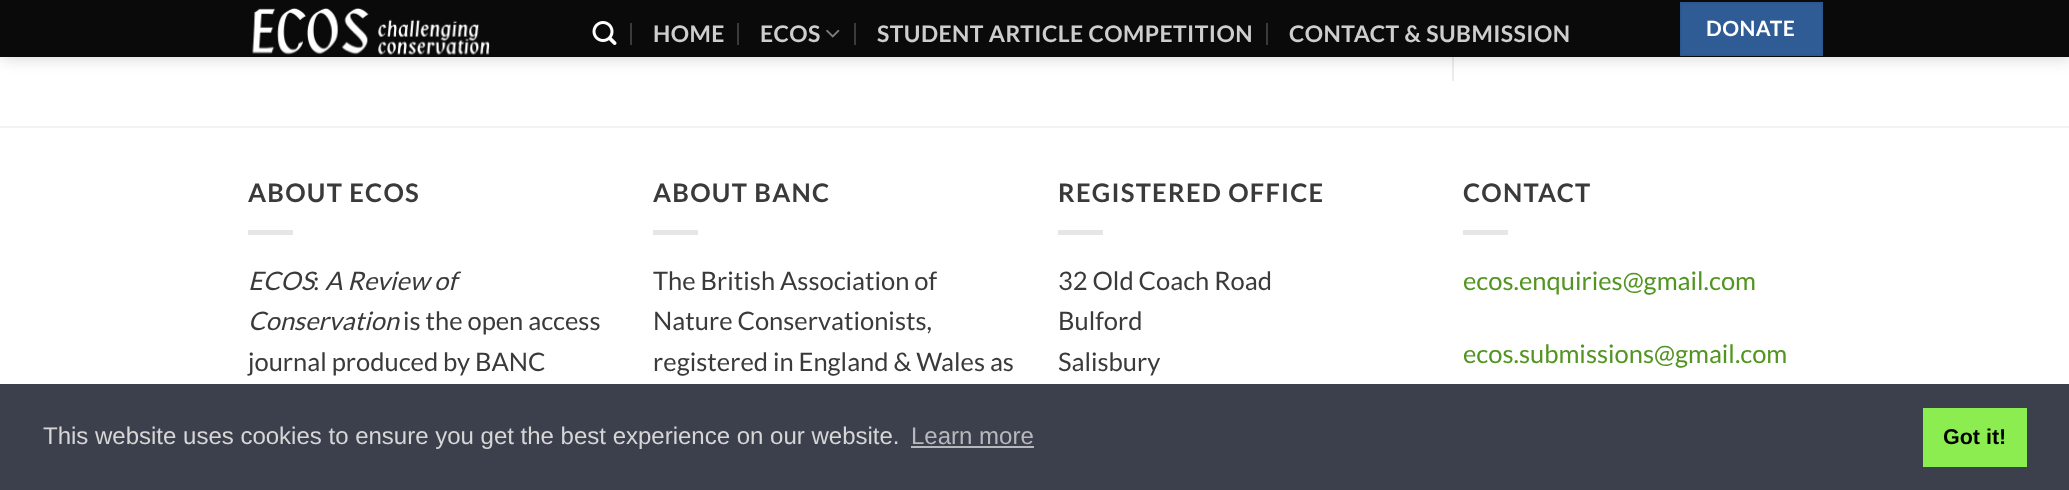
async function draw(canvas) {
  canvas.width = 2069;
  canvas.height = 490;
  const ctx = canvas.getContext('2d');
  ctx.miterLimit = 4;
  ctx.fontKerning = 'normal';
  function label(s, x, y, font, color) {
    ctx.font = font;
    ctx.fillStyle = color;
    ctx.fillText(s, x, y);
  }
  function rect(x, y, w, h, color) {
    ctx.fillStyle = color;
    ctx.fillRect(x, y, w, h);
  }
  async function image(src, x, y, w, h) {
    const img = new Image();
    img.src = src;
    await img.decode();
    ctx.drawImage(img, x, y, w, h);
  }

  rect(0, 0, 2069, 490, '#fff');
  rect(1452, 57, 2, 24, '#ececec');
  ctx.fillStyle = '#00000026';
  ctx.filter = 'blur(7.5px)';
  ctx.beginPath();
  ctx.rect(2, 2, 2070, 57);
  ctx.fill();
  ctx.filter = 'none';
  rect(0, 0, 2069, 57, '#0a0a0a');
  await image('assets/img1.png', 252, 8, 238, 47);
  await image('assets/img2.png', 592, 21, 25, 24);
  rect(630, 23, 2, 22, '#3b3b3b');
  ctx.letterSpacing = '0.45px';
  label('HOME', 653, 42, 'bold 22.9px Lato', '#cecece');
  rect(737, 23, 2, 22, '#3b3b3b');
  label('ECOS', 760, 42, 'bold 22.9px Lato', '#cecece');
  await image('assets/img3.png', 826, 29, 14, 9);
  rect(854, 23, 2, 22, '#3b3b3b');
  label('STUDENT ARTICLE COMPETITION', 877, 42, 'bold 22.9px Lato', '#cecece');
  rect(1266, 23, 2, 22, '#3b3b3b');
  label('CONTACT & SUBMISSION', 1289, 42, 'bold 22.9px Lato', '#cecece');
  ctx.fillStyle = '#305c96';
  ctx.beginPath();
  ctx.rect(1681, 3, 141, 52);
  ctx.fill();
  ctx.strokeStyle = '#2e578f';
  ctx.lineWidth = 2;
  ctx.stroke();
  ctx.letterSpacing = '0.5px';
  label('DONATE', 1706, 36, 'bold 21px Lato', '#fff');
  rect(0, 126, 2069, 2, '#f2f2f2');
  ctx.letterSpacing = '1.25px';
  label('ABOUT ECOS', 248, 202, 'bold 25.5px Lato', '#3a3a3a');
  rect(248, 230, 45, 5, '#e6e6e6');
  ctx.letterSpacing = '0px';
  label('ECOS', 248, 290, 'italic 25.5px Lato', '#3a3a3a');
  label('A Review of', 325, 290, 'italic 25.5px Lato', '#3a3a3a');
  label(':', 313, 290, '25.5px Lato', '#3a3a3a');
  label('Conservation', 248, 330, 'italic 25.5px Lato', '#3a3a3a');
  label('is the open access', 403, 330, '25.5px Lato', '#3a3a3a');
  label('journal produced by BANC', 248, 371, '25.5px Lato', '#3a3a3a');
  ctx.letterSpacing = '1.25px';
  label('ABOUT BANC', 653, 202, 'bold 25.5px Lato', '#3a3a3a');
  rect(653, 230, 45, 5, '#e6e6e6');
  ctx.letterSpacing = '0px';
  label('The British Association of', 653, 290, '25.5px Lato', '#3a3a3a');
  label('Nature Conservationists,', 653, 330, '25.5px Lato', '#3a3a3a');
  label('registered in England & Wales as', 653, 371, '25.5px Lato', '#3a3a3a');
  ctx.letterSpacing = '1.25px';
  label('REGISTERED OFFICE', 1058, 202, 'bold 25.5px Lato', '#3a3a3a');
  rect(1058, 230, 45, 5, '#e6e6e6');
  ctx.letterSpacing = '0px';
  label('32 Old Coach Road', 1058, 290, '25.5px Lato', '#3a3a3a');
  label('Bulford', 1058, 330, '25.5px Lato', '#3a3a3a');
  label('Salisbury', 1058, 371, '25.5px Lato', '#3a3a3a');
  ctx.letterSpacing = '1.25px';
  label('CONTACT', 1463, 202, 'bold 25.5px Lato', '#3a3a3a');
  rect(1463, 230, 45, 5, '#e6e6e6');
  ctx.letterSpacing = '0px';
  label('ecos.enquiries@gmail.com', 1463, 290, '25.5px Lato', '#529521');
  label('ecos.submissions@gmail.com', 1463, 363, '25.5px Lato', '#529521');
  rect(0, 384, 2069, 106, '#3c404d');
  label('This website uses cookies to ensure you get the best experience on our website.', 43, 444, '24px Liberation Sans', '#d6d6d6');
  label('Learn more', 911, 444, '24px Liberation Sans', '#b7b8bb');
  rect(911, 446, 123, 2, '#b7b8bb');
  rect(1923, 408, 104, 59, '#8bed4f');
  label('Got it!', 1943, 444, 'bold 21.5px Liberation Sans', '#000');
}

draw(document.querySelector('canvas'));
